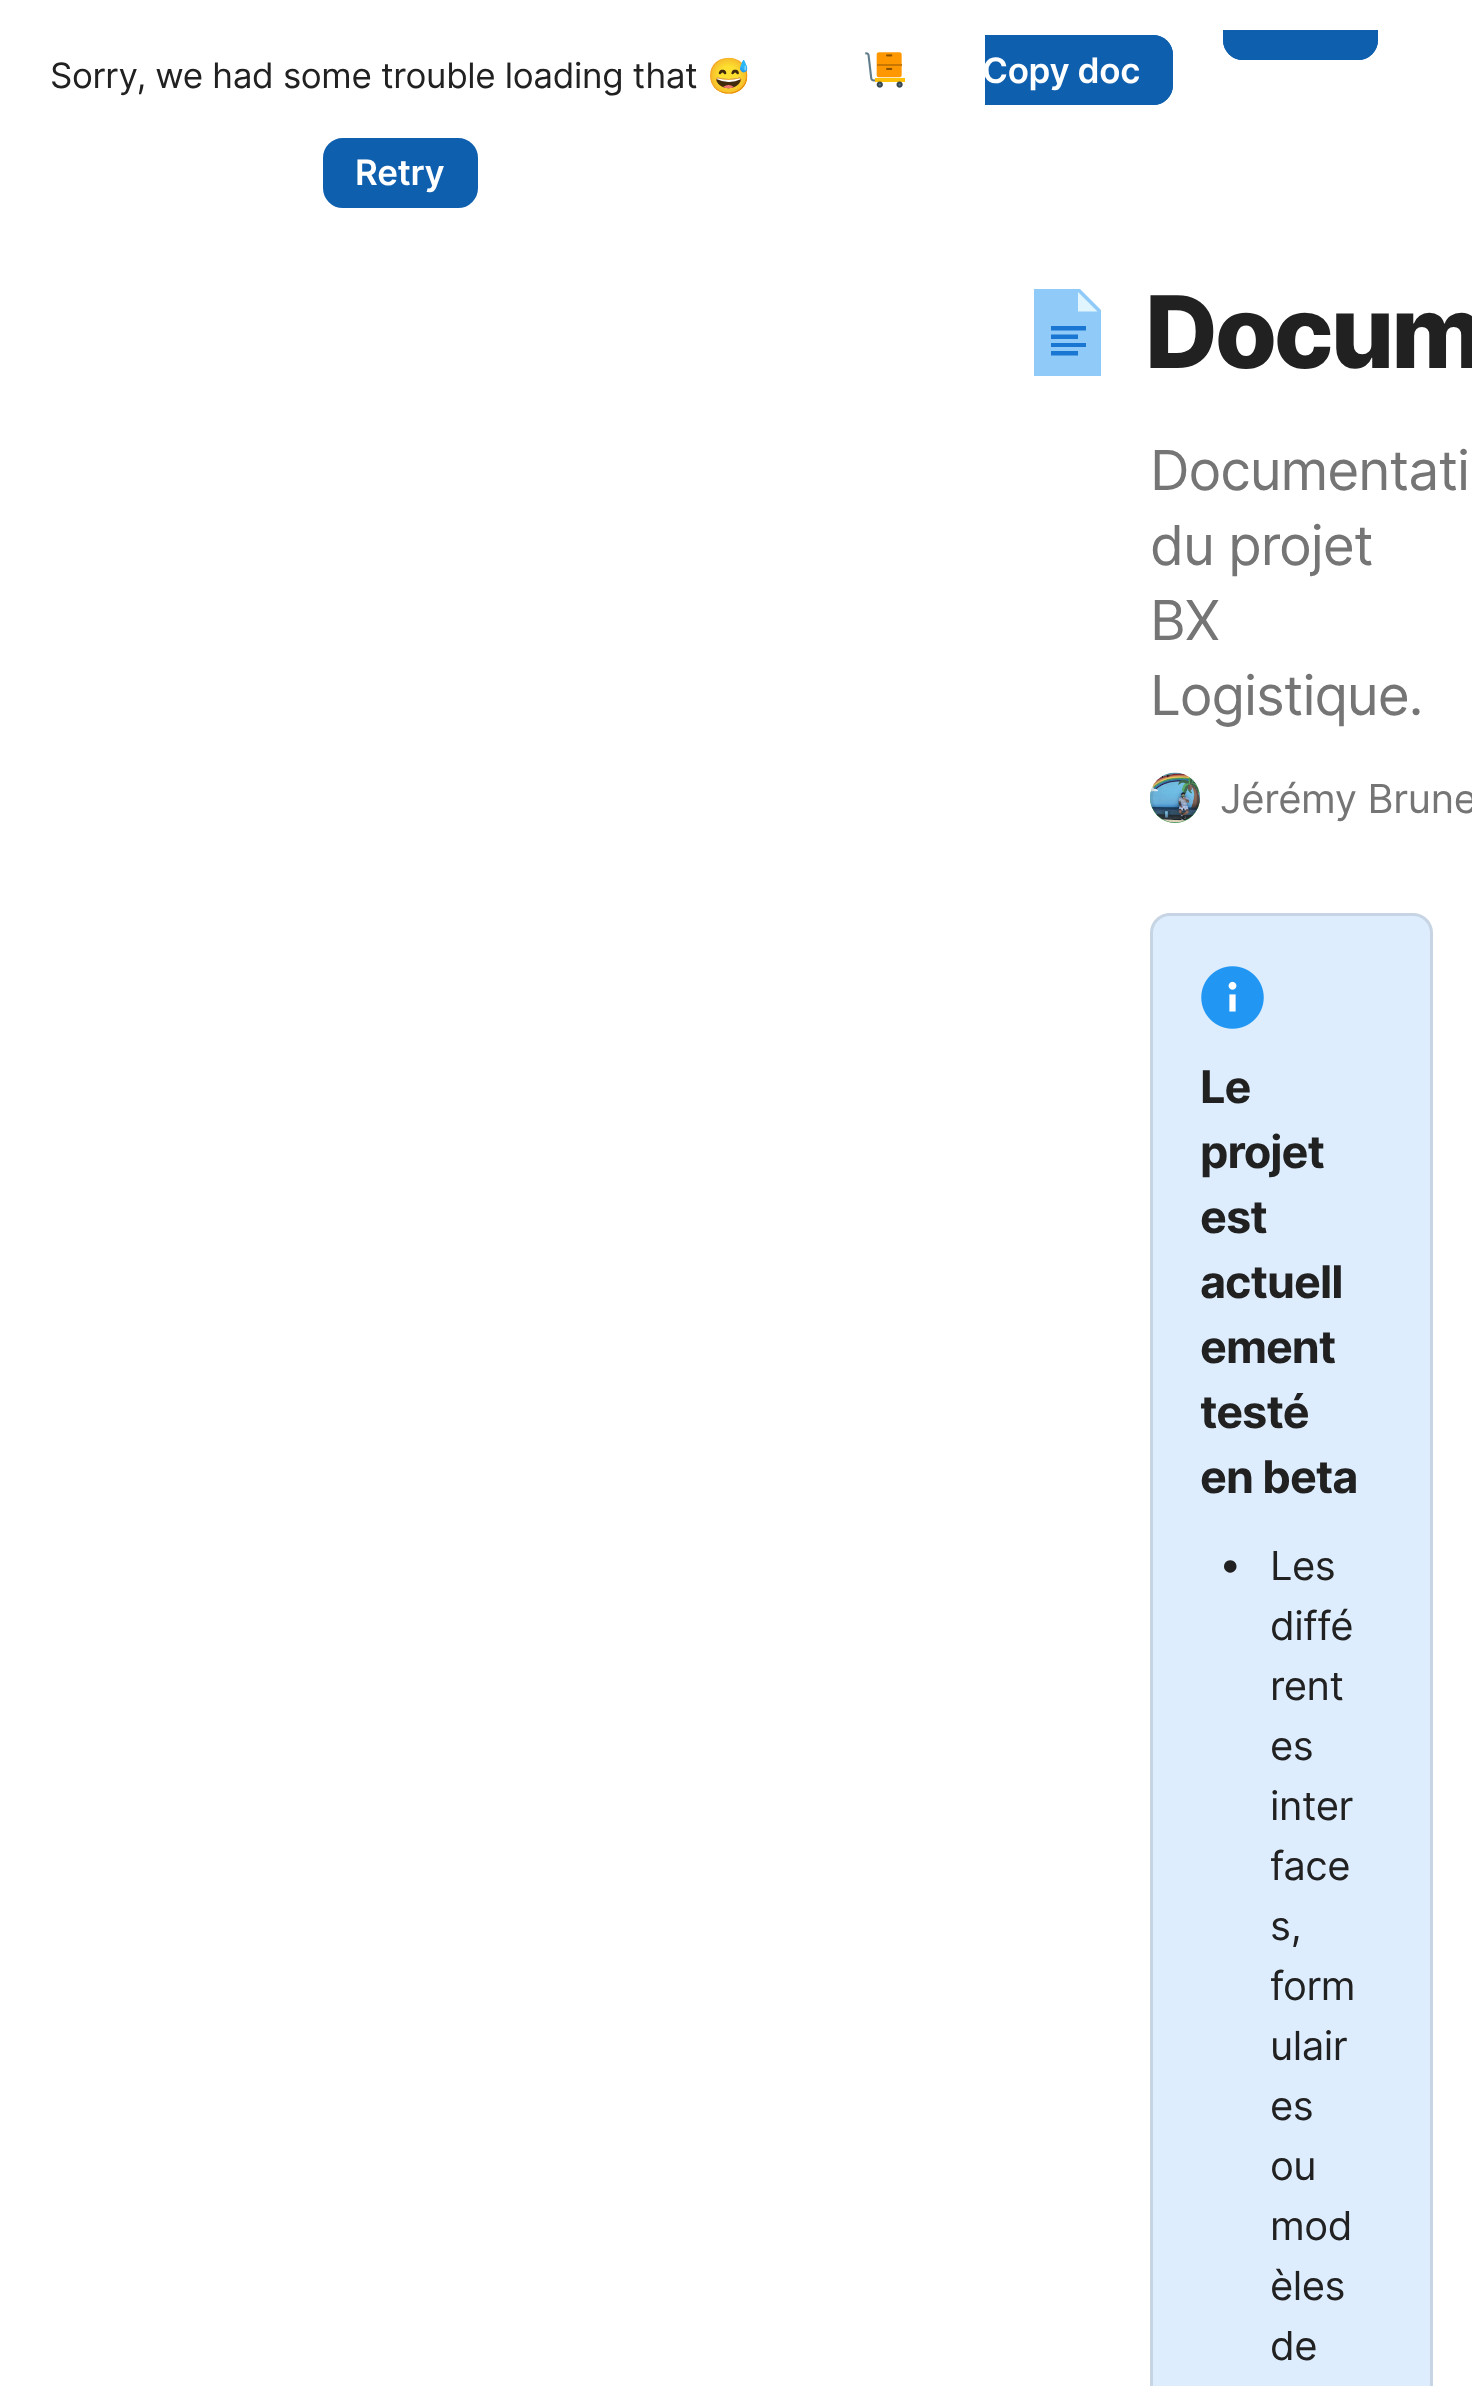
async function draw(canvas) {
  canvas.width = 1472;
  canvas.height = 2386;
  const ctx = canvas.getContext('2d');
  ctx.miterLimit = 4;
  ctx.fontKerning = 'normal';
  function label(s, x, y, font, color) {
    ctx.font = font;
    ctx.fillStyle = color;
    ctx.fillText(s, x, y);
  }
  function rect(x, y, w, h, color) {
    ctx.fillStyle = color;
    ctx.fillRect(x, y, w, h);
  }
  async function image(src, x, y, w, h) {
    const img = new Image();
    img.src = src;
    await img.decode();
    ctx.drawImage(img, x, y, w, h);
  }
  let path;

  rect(0, 0, 1472, 2386, '#fff');
  ctx.letterSpacing = '-0.35px';
  label('Sorry, we had some trouble loading that', 50, 88, '35px Inter', '#212121');
  label('😅', 707, 88, '35px Noto Color Emoji', '#212121');
  ctx.fillStyle = '#0f5faf';
  ctx.beginPath();
  ctx.roundRect(324.5, 139.5, 152, 67, 18.5);
  ctx.fill();
  ctx.strokeStyle = '#0f5faf';
  ctx.lineWidth = 3;
  ctx.stroke();
  label('Retry', 355, 185, '600 35px Inter', '#fff');
  await image('assets/img1.png', 865, 52, 40, 36);
  ctx.fillStyle = '#0f5faf';
  ctx.beginPath();
  ctx.roundRect(1223, 30, 155, 30, [0, 0, 20, 20]);
  ctx.fill();
  ctx.save();
  ctx.beginPath();
  ctx.rect(985, 30, 443, 80);
  ctx.clip();
  ctx.beginPath();
  ctx.roundRect(1224.5, -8.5, 152, 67, 18.5);
  ctx.stroke();
  ctx.restore();
  ctx.beginPath();
  ctx.roundRect(985, 35, 188, 70, [0, 20, 20, 0]);
  ctx.fill();
  ctx.save();
  ctx.beginPath();
  ctx.rect(985, 30, 443, 80);
  ctx.clip();
  ctx.beginPath();
  ctx.roundRect(951.5, 36.5, 220, 67, 18.5);
  ctx.stroke();
  label('Copy doc', 982, 83, '600 35px Inter', '#fff');
  ctx.restore();
  ctx.fillStyle = '#90caf9';
  path = new Path2D('M1101 376H1034V289H1080L1101 310Z');
  ctx.fill(path);
  ctx.fillStyle = '#e1f5fe';
  path = new Path2D('M1097.5 311.5H1078V292Z');
  ctx.fill(path);
  ctx.fillStyle = '#1976d2';
  path = new Path2D('M1051 326H1086V330.5H1051ZM1051 334.5H1078V339H1051ZM1051 343H1086V347H1051ZM1051 351H1078V355.5H1051Z');
  ctx.fill(path);
  ctx.letterSpacing = '-3px';
  label('Docum', 1145, 368, '800 100px Inter', '#212121');
  ctx.letterSpacing = '-1.1px';
  label('Documentati', 1150, 490, '55px Inter', '#757575');
  label('du projet', 1150, 565, '55px Inter', '#757575');
  label('BX', 1150, 640, '55px Inter', '#757575');
  label('Logistique.', 1150, 715, '55px Inter', '#757575');
  ctx.fillStyle = '#2e964b';
  ctx.beginPath();
  ctx.arc(1175, 798, 25, 0, 2 * Math.PI);
  ctx.fill();
  await image('assets/img2.png', 1150, 772, 50, 51);
  ctx.beginPath();
  ctx.arc(1175, 798, 23.5, 0, 2 * Math.PI);
  ctx.strokeStyle = '#00000014';
  ctx.stroke();
  ctx.letterSpacing = '-0.35px';
  label('Jérémy Brune', 1220, 813, '40px Inter', '#757575');
  ctx.fillStyle = '#ddedfd';
  path = new Path2D('M1170 913H1413C1424 913 1433 922 1433 933V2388H1150V933C1150 922 1159 913 1170 913Z');
  ctx.fill(path);
  ctx.beginPath();
  ctx.roundRect(1151.5, 914.5, 280, 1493, 18.5);
  ctx.strokeStyle = '#0000001a';
  ctx.stroke();
  await image('assets/img3.png', 1201, 966, 63, 63);
  ctx.letterSpacing = '-1px';
  label('Le', 1200, 1103, 'bold 45px Inter', '#212121');
  label('projet', 1200, 1168, 'bold 45px Inter', '#212121');
  label('est', 1200, 1233, 'bold 45px Inter', '#212121');
  label('actuell', 1200, 1298, 'bold 45px Inter', '#212121');
  label('ement', 1200, 1363, 'bold 45px Inter', '#212121');
  label('testé', 1200, 1428, 'bold 45px Inter', '#212121');
  label('en beta', 1200, 1493, 'bold 45px Inter', '#212121');
  ctx.letterSpacing = '-0.5px';
  label('•', 1219, 1578, '40px Inter', '#212121');
  label('Les', 1270, 1580, '40px Inter', '#212121');
  label('diffé', 1270, 1640, '40px Inter', '#212121');
  label('rent', 1270, 1700, '40px Inter', '#212121');
  label('es', 1270, 1760, '40px Inter', '#212121');
  label('inter', 1270, 1820, '40px Inter', '#212121');
  label('face', 1270, 1880, '40px Inter', '#212121');
  label('s,', 1270, 1940, '40px Inter', '#212121');
  label('form', 1270, 2000, '40px Inter', '#212121');
  label('ulair', 1270, 2060, '40px Inter', '#212121');
  label('es', 1270, 2120, '40px Inter', '#212121');
  label('ou', 1270, 2180, '40px Inter', '#212121');
  label('mod', 1270, 2240, '40px Inter', '#212121');
  label('èles', 1270, 2300, '40px Inter', '#212121');
  label('de', 1270, 2360, '40px Inter', '#212121');
}

draw(document.querySelector('canvas'));
